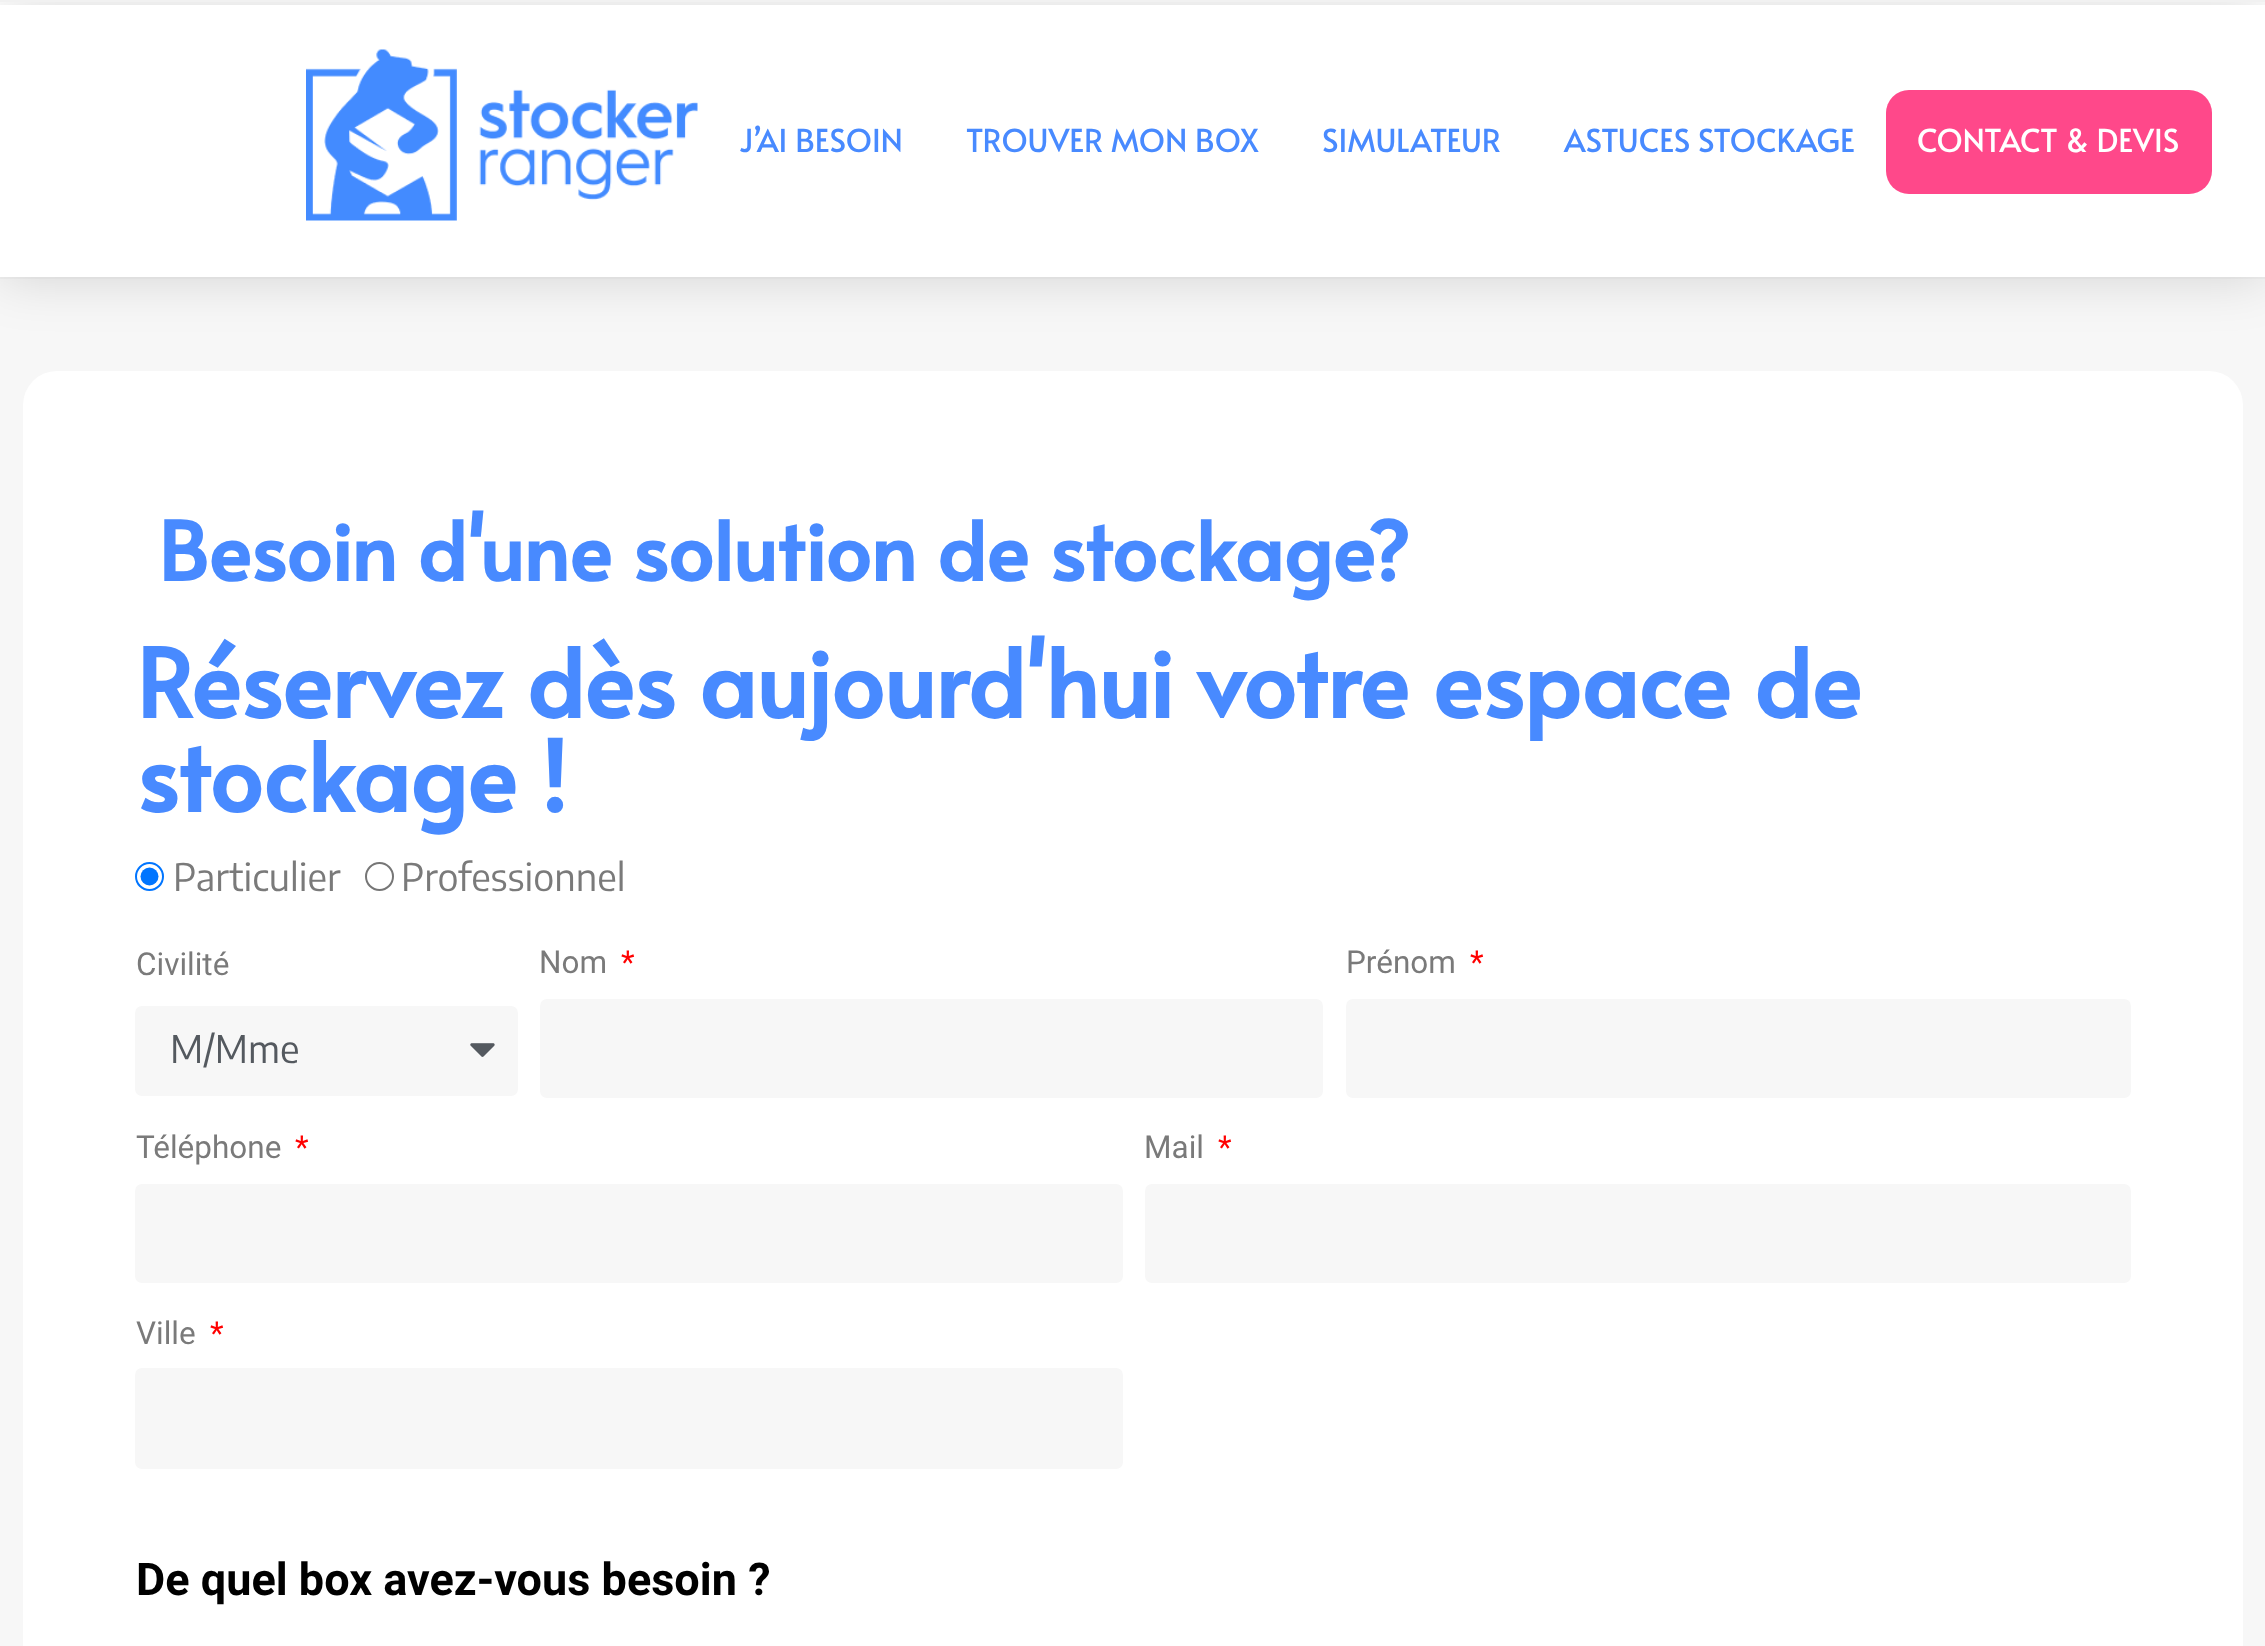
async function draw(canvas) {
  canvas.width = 2265;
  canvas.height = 1646;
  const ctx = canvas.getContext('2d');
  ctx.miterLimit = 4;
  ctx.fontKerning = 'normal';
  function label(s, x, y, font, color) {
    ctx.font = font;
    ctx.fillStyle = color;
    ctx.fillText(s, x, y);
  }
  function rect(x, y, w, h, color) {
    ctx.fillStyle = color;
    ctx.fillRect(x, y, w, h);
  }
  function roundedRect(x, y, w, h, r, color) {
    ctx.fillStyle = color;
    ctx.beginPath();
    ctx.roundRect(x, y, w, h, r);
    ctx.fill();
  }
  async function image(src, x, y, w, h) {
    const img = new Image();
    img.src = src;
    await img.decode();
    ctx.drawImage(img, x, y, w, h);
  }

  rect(0, 0, 2265, 1646, '#fff');
  rect(0, 277, 2265, 2, '#f1f1f1');
  rect(0, 279, 2265, 1367, '#f7f7f7');
  ctx.fillStyle = '#00000026';
  ctx.filter = 'blur(27px)';
  ctx.beginPath();
  ctx.rect(0, 5, 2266, 272);
  ctx.fill();
  ctx.filter = 'none';
  rect(0, 0, 2265, 2, '#f1f1f1');
  rect(0, 5, 2265, 272, '#fff');
  await image('assets/img1.png', 306, 49, 392, 172);
  label('J’AI BESOIN', 739, 152, '31.5px Alata', '#488aff');
  label('TROUVER MON BOX', 966, 152, '31.5px Alata', '#488aff');
  label('SIMULATEUR', 1322, 152, '31.5px Alata', '#488aff');
  label('ASTUCES STOCKAGE', 1564, 152, '31.5px Alata', '#488aff');
  roundedRect(1886, 90, 326, 104, 23, '#ff488a');
  label('CONTACT & DEVIS', 1917, 152, '31.5px Alata', '#fff');
  roundedRect(23, 371, 2220, 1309, 34, '#fff');
  label('Besoin d\'une solution de stockage?', 158, 581, 'bold 81px Alata', '#488aff');
  label('Réservez dès aujourd\'hui votre espace de', 136, 718, 'bold 94.5px Alata', '#488aff');
  label('stockage !', 136, 812, 'bold 94.5px Alata', '#488aff');
  ctx.beginPath();
  ctx.arc(149.5, 876.5, 13.5, 0, 2 * Math.PI);
  ctx.strokeStyle = '#0075ff';
  ctx.lineWidth = 2;
  ctx.stroke();
  ctx.fillStyle = '#0075ff';
  ctx.beginPath();
  ctx.arc(149.5, 876.5, 9, 0, 2 * Math.PI);
  ctx.fill();
  label('Particulier', 173, 891, '37.75px Encode Sans Condensed', '#7a7a7a');
  ctx.beginPath();
  ctx.arc(379.5, 876.5, 13.5, 0, 2 * Math.PI);
  ctx.strokeStyle = '#767676';
  ctx.stroke();
  label('Professionnel', 401, 891, '37.75px Encode Sans Condensed', '#7a7a7a');
  label('Civilité', 136, 975, '31.5px Roboto', '#7a7a7a');
  roundedRect(135, 1006, 383, 90, 7, '#f7f7f7');
  label('M/Mme', 170, 1063, '37.75px Encode Sans Condensed', '#54595f');
  await image('assets/img2.png', 470, 1043, 25, 14);
  label('Nom', 539, 973, '31.5px Roboto', '#7a7a7a');
  label('*', 621, 973, '31.5px Roboto', '#f00');
  roundedRect(540, 999, 783, 99, 7, '#f7f7f7');
  label('Prénom', 1346, 973, '31.5px Roboto', '#7a7a7a');
  label('*', 1470, 973, '31.5px Roboto', '#f00');
  roundedRect(1346, 999, 785, 99, 7, '#f7f7f7');
  label('Téléphone', 136, 1158, '31.5px Roboto', '#7a7a7a');
  label('*', 295, 1158, '31.5px Roboto', '#f00');
  roundedRect(135, 1184, 988, 99, 7, '#f7f7f7');
  label('Mail', 1144, 1158, '31.5px Roboto', '#7a7a7a');
  label('*', 1218, 1158, '31.5px Roboto', '#f00');
  roundedRect(1145, 1184, 986, 99, 7, '#f7f7f7');
  label('Ville', 136, 1344, '31.5px Roboto', '#7a7a7a');
  label('*', 210, 1344, '31.5px Roboto', '#f00');
  roundedRect(135, 1368, 988, 101, 7, '#f7f7f7');
  label('De quel box avez-vous besoin ?', 136, 1595, 'bold 45px Roboto', '#000');
}

draw(document.querySelector('canvas'));
